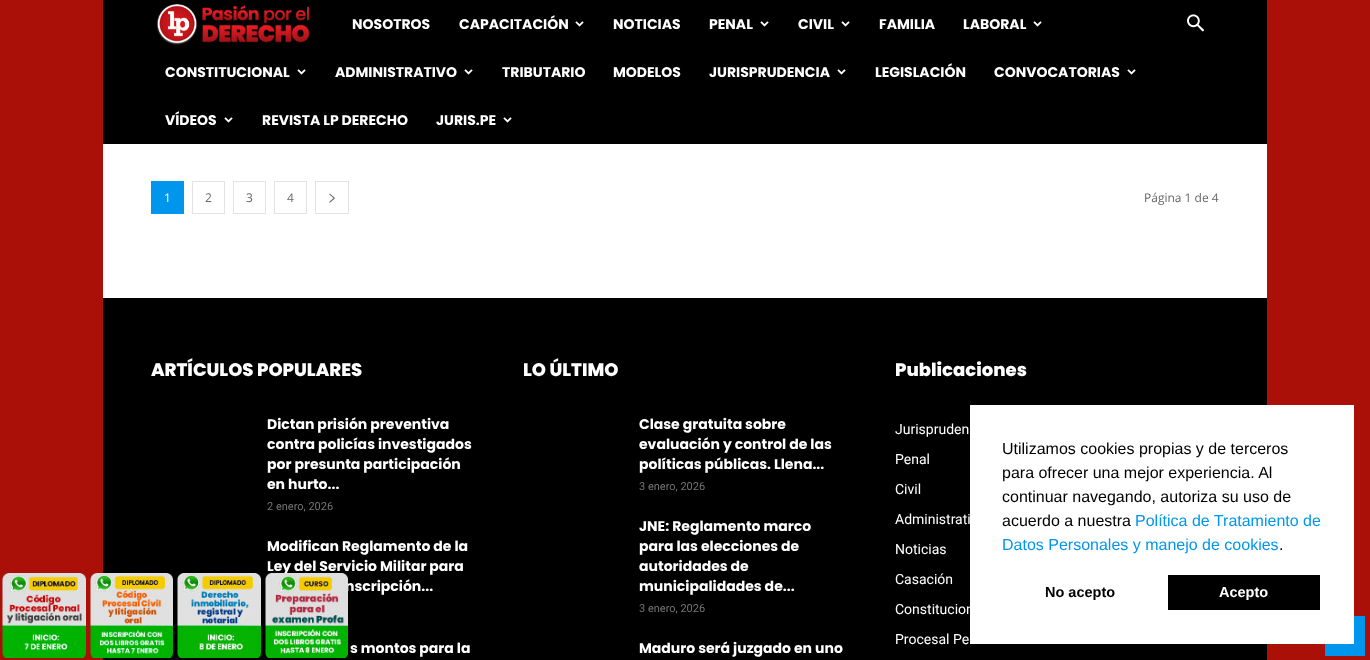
async function draw(canvas) {
  canvas.width = 1370;
  canvas.height = 660;
  const ctx = canvas.getContext('2d');
  ctx.miterLimit = 4;
  ctx.fontKerning = 'normal';
  function label(s, x, y, font, color) {
    ctx.font = font;
    ctx.fillStyle = color;
    ctx.fillText(s, x, y);
  }
  function rect(x, y, w, h, color) {
    ctx.fillStyle = color;
    ctx.fillRect(x, y, w, h);
  }
  async function image(src, x, y, w, h) {
    const img = new Image();
    img.src = src;
    await img.decode();
    ctx.drawImage(img, x, y, w, h);
  }

  rect(0, 0, 1370, 660, '#aa1008');
  rect(103, 0, 1164, 144, '#000');
  await image('assets/img1.png', 156, 3, 153, 42);
  label('NOSOTROS', 352, 29, 'bold 14px Poppins', '#fff');
  label('CAPACITACIÓN', 459, 29, 'bold 14px Poppins', '#fff');
  await image('assets/img2.png', 575, 21, 9, 6);
  label('NOTICIAS', 613, 29, 'bold 14px Poppins', '#fff');
  label('PENAL', 709, 29, 'bold 14px Poppins', '#fff');
  await image('assets/img2.png', 760, 21, 9, 6);
  label('CIVIL', 798, 29, 'bold 14px Poppins', '#fff');
  await image('assets/img2.png', 841, 21, 9, 6);
  label('FAMILIA', 879, 29, 'bold 14px Poppins', '#fff');
  label('LABORAL', 963, 29, 'bold 14px Poppins', '#fff');
  await image('assets/img2.png', 1033, 21, 9, 6);
  label('CONSTITUCIONAL', 165, 77, 'bold 14px Poppins', '#fff');
  await image('assets/img2.png', 297, 69, 9, 6);
  label('ADMINISTRATIVO', 335, 77, 'bold 14px Poppins', '#fff');
  await image('assets/img2.png', 464, 69, 9, 6);
  label('TRIBUTARIO', 502, 77, 'bold 14px Poppins', '#fff');
  label('MODELOS', 613, 77, 'bold 14px Poppins', '#fff');
  label('JURISPRUDENCIA', 709, 77, 'bold 14px Poppins', '#fff');
  await image('assets/img2.png', 837, 69, 9, 6);
  label('LEGISLACIÓN', 875, 77, 'bold 14px Poppins', '#fff');
  label('CONVOCATORIAS', 994, 77, 'bold 14px Poppins', '#fff');
  await image('assets/img2.png', 1127, 69, 9, 6);
  label('VÍDEOS', 165, 125, 'bold 14px Poppins', '#fff');
  await image('assets/img2.png', 224, 117, 9, 6);
  label('REVISTA LP DERECHO', 262, 125, 'bold 14px Poppins', '#fff');
  label('JURIS.PE', 436, 125, 'bold 14px Poppins', '#fff');
  await image('assets/img2.png', 503, 117, 9, 6);
  await image('assets/img3.png', 1187, 14, 17, 18);
  rect(103, 144, 1164, 154, '#fff');
  rect(151, 181, 33, 33, '#0096ed');
  label('1', 164, 202, '12px Open Sans', '#fff');
  ctx.strokeStyle = '#e3e3e3';
  ctx.strokeRect(192.5, 181.5, 32, 32);
  label('2', 205, 202, '12px Open Sans', '#666');
  ctx.strokeRect(233.5, 181.5, 32, 32);
  label('3', 246, 202, '12px Open Sans', '#666');
  ctx.strokeRect(274.5, 181.5, 32, 32);
  label('4', 287, 202, '12px Open Sans', '#666');
  ctx.strokeRect(315.5, 181.5, 33, 32);
  await image('assets/img4.png', 329, 193, 6, 10);
  label('Página 1 de 4', 1144, 202, '12px Open Sans', '#666');
  rect(103, 298, 1164, 362, '#000');
  label('ARTÍCULOS POPULARES', 151, 376, '800 18px Poppins', '#fff');
  label('Dictan prisión preventiva', 267, 429, 'bold 14px Poppins', '#fff');
  label('contra policías investigados', 267, 449, 'bold 14px Poppins', '#fff');
  label('por presunta participación', 267, 469, 'bold 14px Poppins', '#fff');
  label('en hurto...', 267, 489, 'bold 14px Poppins', '#fff');
  label('2 enero, 2026', 267, 510, '11px Roboto', '#767676');
  label('Modifican Reglamento de la', 267, 551, 'bold 14px Poppins', '#fff');
  label('Ley del Servicio Militar para', 267, 571, 'bold 14px Poppins', '#fff');
  label('nscripción...', 345, 591, 'bold 14px Poppins', '#fff');
  label('s montos para la', 350, 653, 'bold 14px Poppins', '#fff');
  label('LO ÚLTIMO', 523, 376, '800 18px Poppins', '#fff');
  label('Clase gratuita sobre', 639, 429, 'bold 14px Poppins', '#fff');
  label('evaluación y control de las', 639, 449, 'bold 14px Poppins', '#fff');
  label('políticas públicas. Llena...', 639, 469, 'bold 14px Poppins', '#fff');
  label('3 enero, 2026', 639, 490, '11px Roboto', '#767676');
  label('JNE: Reglamento marco', 639, 531, 'bold 14px Poppins', '#fff');
  label('para las elecciones de', 639, 551, 'bold 14px Poppins', '#fff');
  label('autoridades de', 639, 571, 'bold 14px Poppins', '#fff');
  label('municipalidades de...', 639, 591, 'bold 14px Poppins', '#fff');
  label('3 enero, 2026', 639, 612, '11px Roboto', '#767676');
  label('Maduro será juzgado en uno', 639, 653, 'bold 14px Poppins', '#fff');
  label('Publicaciones', 895, 376, '800 18px Poppins', '#fff');
  label('Jurispruden', 895, 434, '14px Roboto', '#fff');
  label('Penal', 895, 464, '14px Roboto', '#fff');
  label('Civil', 895, 494, '14px Roboto', '#fff');
  label('Administrati', 895, 524, '14px Roboto', '#fff');
  label('Noticias', 895, 554, '14px Roboto', '#fff');
  label('Casación', 895, 584, '14px Roboto', '#fff');
  label('Constitucion', 895, 614, '14px Roboto', '#fff');
  label('Procesal Pe', 895, 644, '14px Roboto', '#fff');
  rect(1325, 616, 40, 40, '#0096ed');
  rect(970, 405, 384, 239, '#fff');
  label('Utilizamos cookies propias y de terceros', 1002, 454, '16px Liberation Sans', '#000');
  label('para ofrecer una mejor experiencia. Al', 1002, 478, '16px Liberation Sans', '#000');
  label('continuar navegando, autoriza su uso de', 1002, 502, '16px Liberation Sans', '#000');
  label('acuerdo a nuestra', 1002, 526, '16px Liberation Sans', '#000');
  label('Política de Tratamiento de', 1135, 526, '16px Liberation Sans', '#0096ed');
  label('Datos Personales y manejo de cookies', 1002, 550, '16px Liberation Sans', '#0096ed');
  label('.', 1279, 550, '16px Liberation Sans', '#000');
  label('No acepto', 1045, 597, 'bold 14.5px Liberation Sans', '#000');
  rect(1168, 575, 152, 35, '#000');
  label('Acepto', 1219, 597, 'bold 14.5px Liberation Sans', '#fff');
  await image('assets/img5.png', 2, 573, 84, 85);
  await image('assets/img6.png', 90, 573, 83, 85);
  await image('assets/img7.png', 177, 573, 84, 85);
  await image('assets/img8.png', 265, 573, 83, 85);
}

draw(document.querySelector('canvas'));
